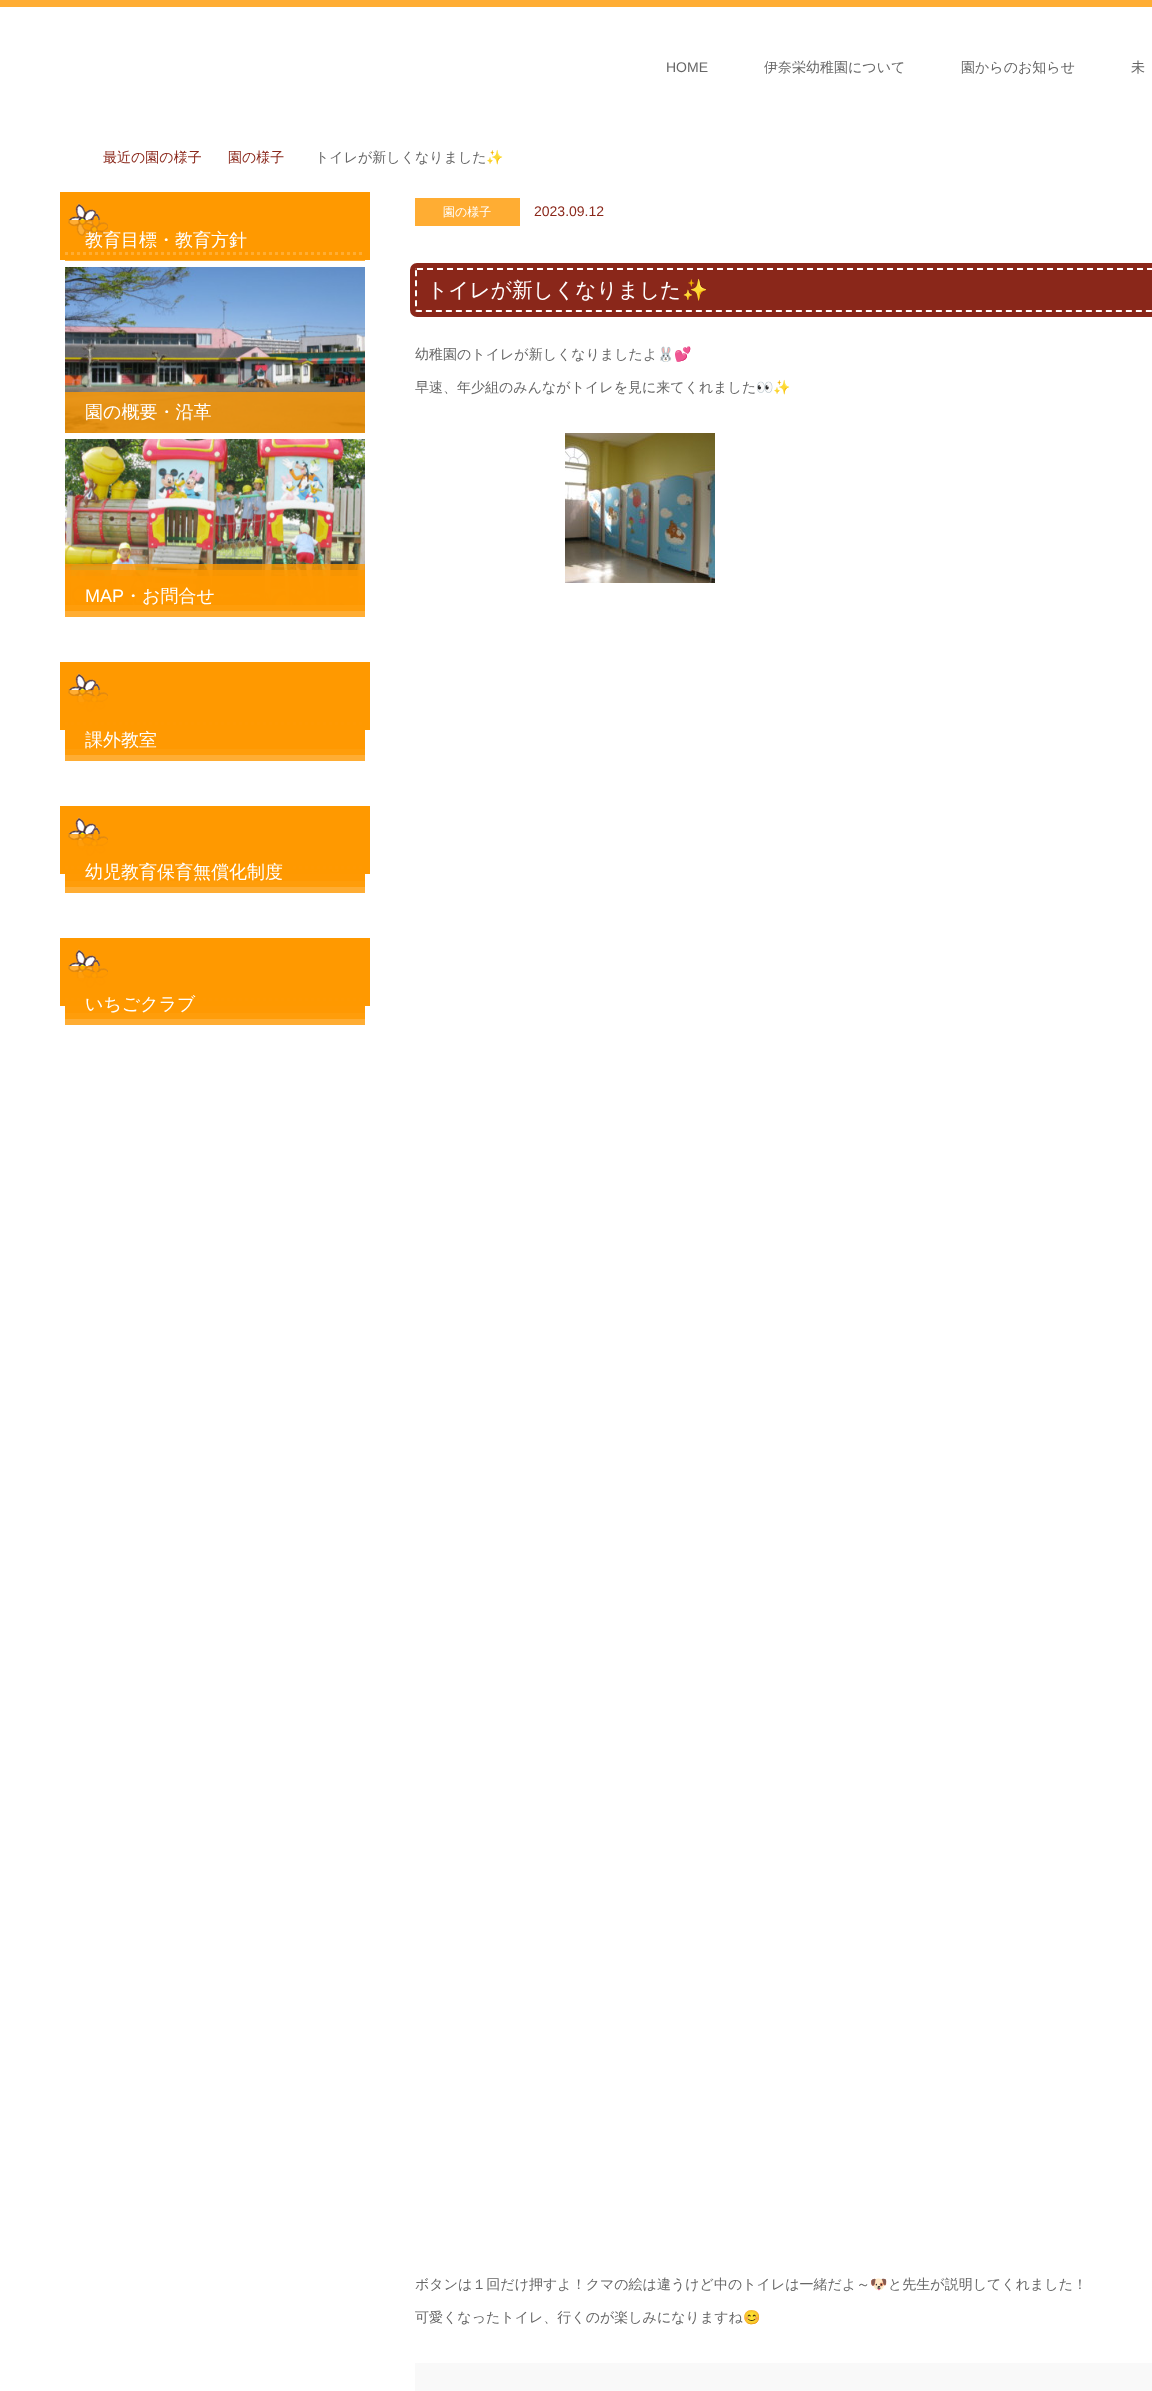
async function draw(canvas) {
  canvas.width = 1152;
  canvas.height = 2391;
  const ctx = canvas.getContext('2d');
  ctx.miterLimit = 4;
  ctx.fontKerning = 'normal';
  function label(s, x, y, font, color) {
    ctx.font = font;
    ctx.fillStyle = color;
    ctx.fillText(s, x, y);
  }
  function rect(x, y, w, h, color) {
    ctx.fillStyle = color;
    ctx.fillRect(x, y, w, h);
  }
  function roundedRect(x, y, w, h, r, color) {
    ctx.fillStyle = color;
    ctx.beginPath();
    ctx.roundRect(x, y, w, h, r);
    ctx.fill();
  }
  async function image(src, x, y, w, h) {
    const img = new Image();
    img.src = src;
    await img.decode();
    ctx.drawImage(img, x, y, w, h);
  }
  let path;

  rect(0, 0, 1152, 2391, '#fff');
  rect(0, 0, 1152, 7, '#ffad33');
  label('HOME', 666, 72, '14px Liberation Sans', '#666');
  label('伊奈栄幼稚園について', 764, 72, '500 14px WenQuanYi Zen Hei', '#666');
  label('園からのお知らせ', 961, 72, '500 14px WenQuanYi Zen Hei', '#666');
  label('未', 1131, 72, '500 14px WenQuanYi Zen Hei', '#666');
  label('最近の園の様子', 103, 162, '500 14px WenQuanYi Zen Hei', '#8a271a');
  label('園の様子', 228, 162, '500 14px WenQuanYi Zen Hei', '#8a271a');
  label('トイレが新しくなりました', 315, 162, '500 14px WenQuanYi Zen Hei', '#666');
  label('✨', 486, 162, '14px Noto Color Emoji', '#666');
  ctx.strokeStyle = '#f90';
  ctx.lineWidth = 5;
  ctx.strokeRect(62.5, 194.5, 305, 63);
  rect(65, 197, 300, 58, '#f90');
  await image('assets/img1.png', 68, 203, 40, 39);
  path = new Path2D('M65 253.5H365');
  ctx.strokeStyle = '#fff';
  ctx.lineWidth = 3;
  ctx.setLineDash([3, 3]);
  ctx.stroke(path);
  rect(65, 220, 300, 41, '#ff9900cc');
  label('教育目標・教育方針', 85, 246, '500 18px WenQuanYi Zen Hei', '#fff');
  await image('assets/img2.png', 65, 267, 300, 166);
  rect(65, 392, 300, 41, '#ff9900cc');
  label('園の概要・沿革', 85, 418, '500 18px WenQuanYi Zen Hei', '#fff');
  await image('assets/img3.png', 65, 439, 300, 166);
  rect(65, 564, 300, 41, '#ff9900cc');
  rect(65, 570, 300, 41, '#ff9900cc');
  rect(65, 576, 300, 41, '#ff9900cc');
  label('MAP', 85, 602, '18px Liberation Sans', '#fff');
  label('・お問合せ', 124, 602, '500 18px WenQuanYi Zen Hei', '#fff');
  ctx.strokeStyle = '#f90';
  ctx.lineWidth = 5;
  ctx.setLineDash([]);
  ctx.strokeRect(62.5, 664.5, 305, 63);
  rect(65, 667, 300, 58, '#f90');
  await image('assets/img1.png', 68, 673, 40, 39);
  path = new Path2D('M65 723.5H365');
  ctx.strokeStyle = '#fff';
  ctx.lineWidth = 3;
  ctx.setLineDash([3, 3]);
  ctx.stroke(path);
  rect(65, 690, 300, 41, '#ff9900cc');
  rect(65, 696, 300, 41, '#ff9900cc');
  rect(65, 702, 300, 41, '#ff9900cc');
  rect(65, 731, 300, 18, '#ff9900cc');
  rect(65, 737, 300, 18, '#ff9900cc');
  rect(65, 743, 300, 18, '#ff9900cc');
  label('課外教室', 85, 746, '500 18px WenQuanYi Zen Hei', '#fff');
  ctx.strokeStyle = '#f90';
  ctx.lineWidth = 5;
  ctx.setLineDash([]);
  ctx.strokeRect(62.5, 808.5, 305, 63);
  rect(65, 811, 300, 58, '#f90');
  await image('assets/img1.png', 68, 817, 40, 39);
  path = new Path2D('M65 867.5H365');
  ctx.strokeStyle = '#fff';
  ctx.lineWidth = 3;
  ctx.setLineDash([3, 3]);
  ctx.stroke(path);
  rect(65, 834, 300, 41, '#ff9900cc');
  rect(65, 840, 300, 41, '#ff9900cc');
  rect(65, 846, 300, 41, '#ff9900cc');
  rect(65, 875, 300, 18, '#ff9900cc');
  label('幼児教育保育無償化制度', 85, 878, '500 18px WenQuanYi Zen Hei', '#fff');
  ctx.strokeStyle = '#f90';
  ctx.lineWidth = 5;
  ctx.setLineDash([]);
  ctx.strokeRect(62.5, 940.5, 305, 63);
  rect(65, 943, 300, 58, '#f90');
  await image('assets/img1.png', 68, 949, 40, 39);
  path = new Path2D('M65 999.5H365');
  ctx.strokeStyle = '#fff';
  ctx.lineWidth = 3;
  ctx.setLineDash([3, 3]);
  ctx.stroke(path);
  rect(65, 966, 300, 41, '#ff9900cc');
  rect(65, 972, 300, 41, '#ff9900cc');
  rect(65, 978, 300, 41, '#ff9900cc');
  rect(65, 1007, 300, 18, '#ff9900cc');
  label('いちごクラブ', 85, 1010, '500 18px WenQuanYi Zen Hei', '#fff');
  rect(415, 198, 105, 28, '#ffad33');
  label('園の様子', 443, 216, '500 12px WenQuanYi Zen Hei', '#fff');
  label('2023.09.12', 534, 216, '14px Liberation Sans', '#8a271a');
  ctx.beginPath();
  ctx.roundRect(412.5, 265.5, 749, 49, 4.5);
  ctx.strokeStyle = '#8a271a';
  ctx.lineWidth = 5;
  ctx.setLineDash([]);
  ctx.stroke();
  roundedRect(415, 268, 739, 44, 2, '#8a271a');
  path = new Path2D('M417 269H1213L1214 270V303.5C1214 305 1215 311 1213 311H417L416 310V269.5Z');
  ctx.strokeStyle = '#fff';
  ctx.lineWidth = 2;
  ctx.setLineDash([6, 4]);
  ctx.stroke(path);
  label('トイレが新しくなりました', 427, 297, '500 20.75px WenQuanYi Zen Hei', '#fff');
  label('✨', 682, 297, '20.75px Noto Color Emoji', '#fff');
  label('幼稚園のトイレが新しくなりましたよ', 415, 359, '500 14px WenQuanYi Zen Hei', '#666');
  label('🐰💕', 657, 359, '14px Noto Color Emoji', '#666');
  label('早速、年少組のみんながトイレを見に来てくれました', 415, 392, '500 14px WenQuanYi Zen Hei', '#666');
  label('👀✨', 756, 392, '14px Noto Color Emoji', '#666');
  await image('assets/img4.png', 565, 433, 150, 150);
  label('ボタンは１回だけ押すよ！クマの絵は違うけど中のトイレは一緒だよ～', 415, 2289, '500 14px WenQuanYi Zen Hei', '#666');
  label('🐶', 870, 2289, '14px Noto Color Emoji', '#666');
  label('と先生が説明してくれました！', 888, 2289, '500 14px WenQuanYi Zen Hei', '#666');
  label('可愛くなったトイレ、行くのが楽しみになりますね', 415, 2322, '500 14px WenQuanYi Zen Hei', '#666');
  label('😊', 743, 2322, '14px Noto Color Emoji', '#666');
  rect(415, 2363, 737, 28, '#f9f9f9');
}

draw(document.querySelector('canvas'));
